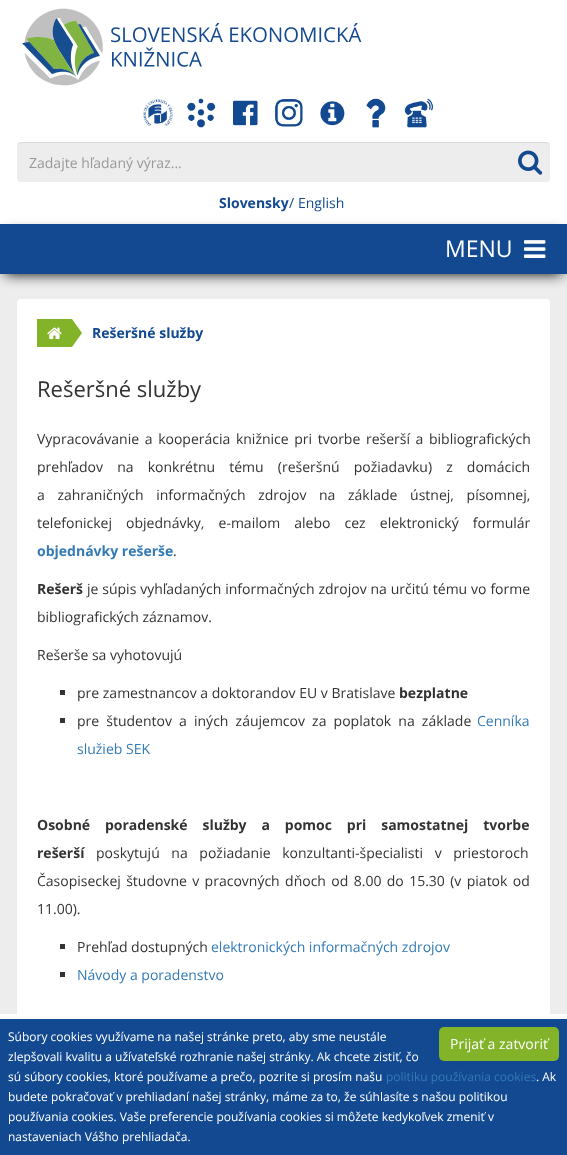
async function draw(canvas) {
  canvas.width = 567;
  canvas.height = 1155;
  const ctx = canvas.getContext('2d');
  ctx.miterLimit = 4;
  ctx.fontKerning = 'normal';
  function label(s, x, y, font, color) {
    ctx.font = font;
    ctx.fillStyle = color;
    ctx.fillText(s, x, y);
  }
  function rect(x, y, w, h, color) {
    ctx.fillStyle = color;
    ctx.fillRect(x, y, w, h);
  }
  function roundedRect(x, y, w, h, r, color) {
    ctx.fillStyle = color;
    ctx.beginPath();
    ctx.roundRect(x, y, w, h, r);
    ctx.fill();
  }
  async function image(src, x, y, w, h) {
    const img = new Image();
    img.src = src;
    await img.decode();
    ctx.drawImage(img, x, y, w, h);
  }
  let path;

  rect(0, 0, 567, 1155, '#ededed');
  rect(0, 0, 567, 224, '#fff');
  await image('assets/img1.png', 22, 8, 340, 78);
  await image('assets/img2.png', 143, 99, 30, 27);
  await image('assets/img3.png', 187, 98, 29, 30);
  await image('assets/img4.png', 233, 100, 25, 26);
  await image('assets/img5.png', 275, 99, 28, 28);
  await image('assets/img6.png', 320, 101, 25, 25);
  await image('assets/img7.png', 366, 98, 20, 30);
  await image('assets/img8.png', 404, 98, 29, 30);
  roundedRect(17, 142, 533, 40, 4, '#ededed');
  ctx.fillStyle = '#00000012';
  path = new Path2D('M21 143H546C548 143 550 145 550 147V146C550 144 548 142 546 142H21C19 142 17 144 17 146V147C17 145 19 143 21 143Z');
  ctx.fill(path);
  label('Zadajte hľadaný výraz...', 29, 168, '14px Open Sans', '#999');
  await image('assets/img9.png', 518, 150, 25, 25);
  label('Slovensky', 219, 208, 'bold 14px Open Sans', '#124990');
  label('/', 289, 208, '14px Open Sans', '#124990');
  label('English', 298, 208, '14px Open Sans', '#124990');
  ctx.fillStyle = '#000';
  ctx.filter = 'blur(7px)';
  ctx.beginPath();
  ctx.rect(5, 234, 557, 40);
  ctx.fill();
  ctx.filter = 'none';
  rect(0, 224, 567, 50, '#124990');
  label('MENU', 445, 257, '23px Open Sans', '#fff');
  await image('assets/img10.png', 524, 240, 22, 18);
  roundedRect(17, 299, 533, 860, 4, '#fff');
  rect(37, 319, 35, 28, '#82b328');
  await image('assets/img11.png', 47, 327, 15, 12);
  path = new Path2D('M72 347V319L82 333Z');
  ctx.fill(path);
  label('Rešeršné služby', 92, 338, 'bold 14px Open Sans', '#124990');
  label('Rešeršné služby', 37, 397, '22px Open Sans', '#333');
  ctx.wordSpacing = '2px';
  label('Vypracovávanie a kooperácia knižnice pri tvorbe rešerší a bibliografických', 37, 444, '14px Open Sans', '#333');
  ctx.wordSpacing = '10.5px';
  label('prehľadov na konkrétnu tému (rešeršnú požiadavku) z domácich', 37, 472, '14px Open Sans', '#333');
  ctx.wordSpacing = '9px';
  label('a zahraničných informačných zdrojov na základe ústnej, písomnej,', 37, 500, '14px Open Sans', '#333');
  ctx.wordSpacing = '10.5px';
  label('telefonickej objednávky, e-mailom alebo cez elektronický formulár', 37, 528, '14px Open Sans', '#333');
  ctx.wordSpacing = '0px';
  label('objednávky rešerše', 37, 556, 'bold 14px Open Sans', '#337ab7');
  label('.', 173, 556, '14px Open Sans', '#333');
  label('Rešerš', 37, 594, 'bold 14px Open Sans', '#333');
  ctx.wordSpacing = '0.25px';
  label('je súpis vyhľadaných informačných zdrojov na určitú tému vo forme', 87, 594, '14px Open Sans', '#333');
  ctx.wordSpacing = '0px';
  label('bibliografických záznamov.', 37, 622, '14px Open Sans', '#333');
  label('Rešerše sa vyhotovujú', 37, 660, '14px Open Sans', '#333');
  rect(60, 690, 5, 5, '#333');
  label('pre zamestnancov a doktorandov EU v Bratislave', 77, 698, '14px Open Sans', '#333');
  label('bezplatne', 399, 698, 'bold 14px Open Sans', '#333');
  rect(60, 718, 5, 5, '#333');
  ctx.wordSpacing = '3.5px';
  label('pre študentov a iných záujemcov za poplatok na základe', 77, 726, '14px Open Sans', '#333');
  ctx.wordSpacing = '0px';
  label('Cenníka', 477, 726, '14px Open Sans', '#337ab7');
  label('služieb SEK', 77, 754, '14px Open Sans', '#337ab7');
  ctx.wordSpacing = '11.25px';
  label('Osobné poradenské služby a pomoc pri samostatnej tvorbe', 37, 830, 'bold 14px Open Sans', '#333');
  ctx.wordSpacing = '0px';
  label('rešerší', 37, 858, 'bold 14px Open Sans', '#333');
  ctx.wordSpacing = '8px';
  label('poskytujú na požiadanie konzultanti-špecialisti v priestoroch', 96, 858, '14px Open Sans', '#333');
  ctx.wordSpacing = '1.75px';
  label('Časopiseckej študovne v pracovných dňoch od 8.00 do 15.30 (v piatok od', 37, 886, '14px Open Sans', '#333');
  ctx.wordSpacing = '0px';
  label('11.00).', 37, 914, '14px Open Sans', '#333');
  rect(60, 944, 5, 5, '#333');
  label('Prehľad dostupných', 77, 952, '14px Open Sans', '#333');
  label('elektronických informačných zdrojov', 211, 952, '14px Open Sans', '#337ab7');
  rect(60, 972, 5, 5, '#333');
  label('Návody a poradenstvo', 77, 980, '14px Open Sans', '#337ab7');
  rect(0, 1019, 567, 136, '#124990');
  rect(0, 1014, 567, 5, '#fff');
  label('Súbory cookies využívame na našej stránke preto, aby sme neustále', 8, 1041, '12px Open Sans', '#fff');
  label('zlepšovali kvalitu a užívateľské rozhranie našej stránky. Ak chcete zistiť, čo', 8, 1061, '12px Open Sans', '#fff');
  label('sú súbory cookies, ktoré používame a prečo, pozrite si prosím našu', 8, 1081, '12px Open Sans', '#fff');
  label('politiku používania cookies', 386, 1081, '12px Open Sans', '#337ab7');
  label('. Ak', 536, 1081, '12px Open Sans', '#fff');
  label('budete pokračovať v prehliadaní našej stránky, máme za to, že súhlasíte s našou politikou', 8, 1101, '12px Open Sans', '#fff');
  label('používania cookies. Vaše preferencie používania cookies si môžete kedykoľvek zmeniť v', 8, 1121, '12px Open Sans', '#fff');
  label('nastaveniach Vášho prehliadača.', 8, 1141, '12px Open Sans', '#fff');
  roundedRect(439, 1027, 120, 34, 5, '#82b328');
  label('Prijať a zatvoriť', 450, 1049, '14px Open Sans', '#fff');
}

draw(document.querySelector('canvas'));
